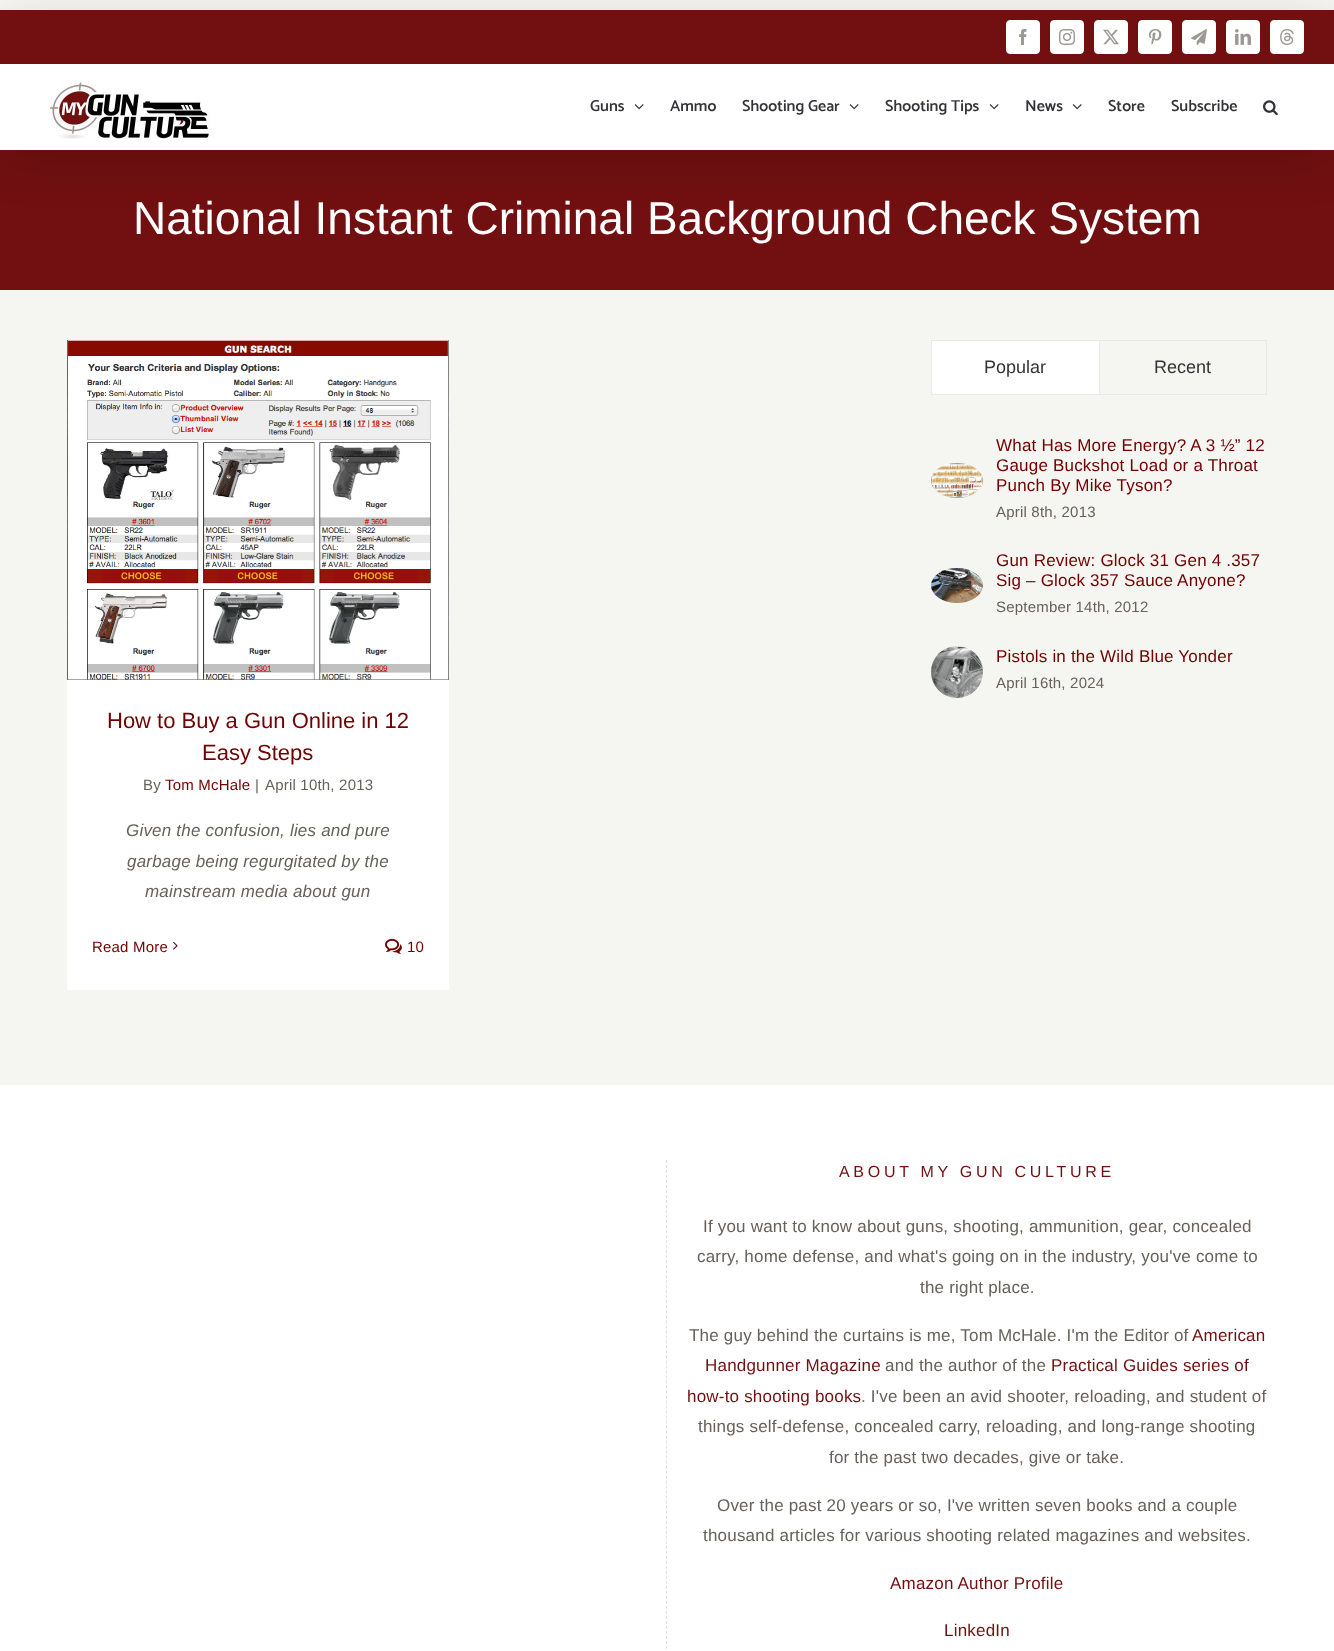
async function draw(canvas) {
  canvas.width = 1334;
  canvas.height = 1651;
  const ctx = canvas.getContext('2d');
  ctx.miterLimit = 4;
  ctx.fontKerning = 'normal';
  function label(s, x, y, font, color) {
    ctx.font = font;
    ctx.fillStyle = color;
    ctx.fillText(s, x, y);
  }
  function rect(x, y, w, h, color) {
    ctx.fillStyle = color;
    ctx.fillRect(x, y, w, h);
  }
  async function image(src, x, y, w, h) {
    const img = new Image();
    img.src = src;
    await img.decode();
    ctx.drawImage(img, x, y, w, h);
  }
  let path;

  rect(0, 0, 1334, 1651, '#f5f5f1');
  rect(0, 150, 1334, 140, '#721011');
  ctx.fillStyle = '#00000024';
  ctx.filter = 'blur(25px)';
  ctx.beginPath();
  ctx.rect(2, 22, 1330, 136);
  ctx.fill();
  ctx.filter = 'none';
  rect(0, 10, 1334, 54, '#721011');
  rect(0, 64, 1334, 86, '#fff');
  ctx.beginPath();
  ctx.roundRect(1006.5, 20.5, 33, 33, 3.5);
  ctx.fill();
  ctx.strokeStyle = '#fff';
  ctx.stroke();
  await image('assets/img1.png', 1019, 29, 8, 16);
  ctx.beginPath();
  ctx.roundRect(1050.5, 20.5, 33, 33, 3.5);
  ctx.fill();
  ctx.stroke();
  await image('assets/img2.png', 1059, 29, 16, 16);
  ctx.beginPath();
  ctx.roundRect(1094.5, 20.5, 33, 33, 3.5);
  ctx.fill();
  ctx.stroke();
  await image('assets/img3.png', 1103, 29, 16, 16);
  ctx.beginPath();
  ctx.roundRect(1138.5, 20.5, 33, 33, 3.5);
  ctx.fill();
  ctx.stroke();
  await image('assets/img4.png', 1148, 29, 14, 16);
  ctx.beginPath();
  ctx.roundRect(1182.5, 20.5, 33, 33, 3.5);
  ctx.fill();
  ctx.stroke();
  await image('assets/img5.png', 1191, 29, 16, 16);
  ctx.beginPath();
  ctx.roundRect(1226.5, 20.5, 33, 33, 3.5);
  ctx.fill();
  ctx.stroke();
  await image('assets/img6.png', 1235, 29, 16, 16);
  ctx.beginPath();
  ctx.roundRect(1270.5, 20.5, 33, 33, 3.5);
  ctx.fill();
  ctx.stroke();
  await image('assets/img7.png', 1280, 29, 14, 16);
  await image('assets/img8.png', 50, 82, 160, 57);
  label('Guns', 590, 111, '600 16px Catamaran', '#333338');
  await image('assets/img9.png', 634, 104, 10, 6);
  label('Ammo', 670, 111, '600 16px Catamaran', '#333338');
  label('Shooting Gear', 742, 111, '600 16px Catamaran', '#333338');
  await image('assets/img9.png', 849, 104, 10, 6);
  label('Shooting Tips', 885, 111, '600 16px Catamaran', '#333338');
  await image('assets/img9.png', 989, 104, 10, 6);
  label('News', 1025, 111, '600 16px Catamaran', '#333338');
  await image('assets/img9.png', 1072, 104, 10, 6);
  label('Store', 1108, 111, '600 16px Catamaran', '#333338');
  label('Subscribe', 1171, 111, '600 16px Catamaran', '#333338');
  await image('assets/img10.png', 1263, 100, 15, 16);
  label('National Instant Criminal Background Check System', 133, 234, '46px Liberation Sans', '#fff');
  ctx.strokeStyle = '#e9e8e7';
  ctx.strokeRect(931.5, 340.5, 335, 54);
  rect(1099, 341, 1, 53, '#e9e8e7');
  rect(932, 341, 167, 53, '#fff');
  label('Popular', 984, 373, '18px Liberation Sans', '#333338');
  label('Recent', 1154, 373, '18px Liberation Sans', '#333338');
  await image('assets/img11.png', 931, 463, 52, 35);
  ctx.letterSpacing = '0.2px';
  label('What Has More Energy? A 3 ½” 12', 996, 451, '17px Liberation Sans', '#720001');
  label('Gauge Buckshot Load or a Throat', 996, 471, '17px Liberation Sans', '#720001');
  label('Punch By Mike Tyson?', 996, 491, '17px Liberation Sans', '#720001');
  label('April 8th, 2013', 996, 517, '15px Liberation Sans', '#67615a');
  await image('assets/img12.png', 931, 568, 52, 35);
  label('Gun Review: Glock 31 Gen 4 .357', 996, 566, '17px Liberation Sans', '#720001');
  label('Sig – Glock 357 Sauce Anyone?', 996, 586, '17px Liberation Sans', '#720001');
  label('September 14th, 2012', 996, 612, '15px Liberation Sans', '#67615a');
  await image('assets/img13.png', 931, 646, 52, 52);
  label('Pistols in the Wild Blue Yonder', 996, 662, '17px Liberation Sans', '#720001');
  label('April 16th, 2024', 996, 688, '15px Liberation Sans', '#67615a');
  rect(67, 680, 382, 310, '#fff');
  await image('assets/img14.png', 67, 340, 382, 340);
  ctx.letterSpacing = '0px';
  label('How to Buy a Gun Online in 12', 107, 728, '22px Liberation Sans', '#720001');
  label('Easy Steps', 202, 760, '22px Liberation Sans', '#720001');
  ctx.letterSpacing = '0.2px';
  label('By', 143, 790, '15px Liberation Sans', '#67615a');
  label('Tom McHale', 165, 790, '15px Liberation Sans', '#720001');
  label('|', 255, 790, '15px Liberation Sans', '#67615a');
  label('April 10th, 2013', 265, 790, '15px Liberation Sans', '#67615a');
  label('Given the confusion, lies and pure', 126, 836, 'italic 17px Liberation Sans', '#67615a');
  label('garbage being regurgitated by the', 127, 867, 'italic 17px Liberation Sans', '#67615a');
  label('mainstream media about gun', 145, 897, 'italic 17px Liberation Sans', '#67615a');
  label('Read More', 92, 952, '15px Liberation Sans', '#720001');
  await image('assets/img15.png', 173, 941, 5, 9);
  await image('assets/img16.png', 385, 938, 17, 16);
  label('10', 407, 952, '15px Liberation Sans', '#720001');
  rect(0, 1085, 1334, 566, '#fff');
  path = new Path2D('M666.5 1160V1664');
  ctx.strokeStyle = '#e0dede';
  ctx.setLineDash([3, 2.01]);
  ctx.stroke(path);
  ctx.letterSpacing = '3.7px';
  label('ABOUT MY GUN CULTURE', 839, 1177, '16px Liberation Sans', '#721011');
  ctx.letterSpacing = '0.2px';
  label('If you want to know about guns, shooting, ammunition, gear, concealed', 703, 1232, '17px Liberation Sans', '#67615a');
  label('carry, home defense, and what\'s going on in the industry, you\'ve come to', 697, 1262, '17px Liberation Sans', '#67615a');
  label('the right place.', 920, 1293, '17px Liberation Sans', '#67615a');
  label('The guy behind the curtains is me, Tom McHale. I\'m the Editor of', 689, 1341, '17px Liberation Sans', '#67615a');
  label('American', 1192, 1341, '17px Liberation Sans', '#721011');
  label('Handgunner Magazine', 705, 1371, '17px Liberation Sans', '#721011');
  label('and the author of the', 885, 1371, '17px Liberation Sans', '#67615a');
  label('Practical Guides series of', 1051, 1371, '17px Liberation Sans', '#721011');
  label('how-to shooting books', 687, 1402, '17px Liberation Sans', '#721011');
  label('. I\'ve been an avid shooter, reloading, and student of', 861, 1402, '17px Liberation Sans', '#67615a');
  label('things self-defense, concealed carry, reloading, and long-range shooting', 698, 1432, '17px Liberation Sans', '#67615a');
  label('for the past two decades, give or take.', 829, 1463, '17px Liberation Sans', '#67615a');
  label('Over the past 20 years or so, I\'ve written seven books and a couple', 717, 1511, '17px Liberation Sans', '#67615a');
  label('thousand articles for various shooting related magazines and websites.', 703, 1541, '17px Liberation Sans', '#67615a');
  label('Amazon Author Profile', 890, 1589, '17px Liberation Sans', '#721011');
  label('LinkedIn', 944, 1636, '17px Liberation Sans', '#721011');
}

draw(document.querySelector('canvas'));
